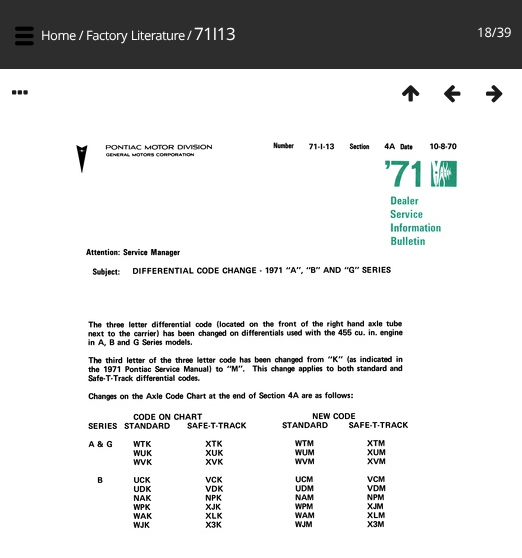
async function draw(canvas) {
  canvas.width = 522;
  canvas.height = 558;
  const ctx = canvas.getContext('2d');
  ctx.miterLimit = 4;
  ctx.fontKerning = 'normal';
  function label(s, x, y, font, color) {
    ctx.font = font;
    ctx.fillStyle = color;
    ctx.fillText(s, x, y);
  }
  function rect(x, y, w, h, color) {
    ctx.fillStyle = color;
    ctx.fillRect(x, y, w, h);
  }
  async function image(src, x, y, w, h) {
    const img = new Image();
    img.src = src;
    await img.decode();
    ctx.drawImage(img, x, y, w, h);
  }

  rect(0, 0, 522, 558, '#fff');
  rect(0, 0, 522, 69, '#2d2d2d');
  await image('assets/img1.png', 15, 26, 19, 20);
  ctx.letterSpacing = '-0.5px';
  label('Home /', 41, 40, '13px Open Sans', '#fff');
  ctx.wordSpacing = '1px';
  label('Factory Literature', 86, 40, '13px Open Sans', '#fff');
  ctx.wordSpacing = '0px';
  label('/', 187, 40, '13px Open Sans', '#fff');
  label('71I13', 194, 40, '17px Open Sans', '#fff');
  ctx.letterSpacing = '0px';
  label('18/39', 477, 37, '13px Open Sans', '#fff');
  label('…', 12, 100, '20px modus', '#1a1a1a');
  label('↑', 402, 100, '20px modus', '#1a1a1a');
  label('←', 444, 100, '20px modus', '#1a1a1a');
  label('→', 486, 100, '20px modus', '#1a1a1a');
  await image('assets/img2.png', 76, 136, 387, 399);
}

draw(document.querySelector('canvas'));
